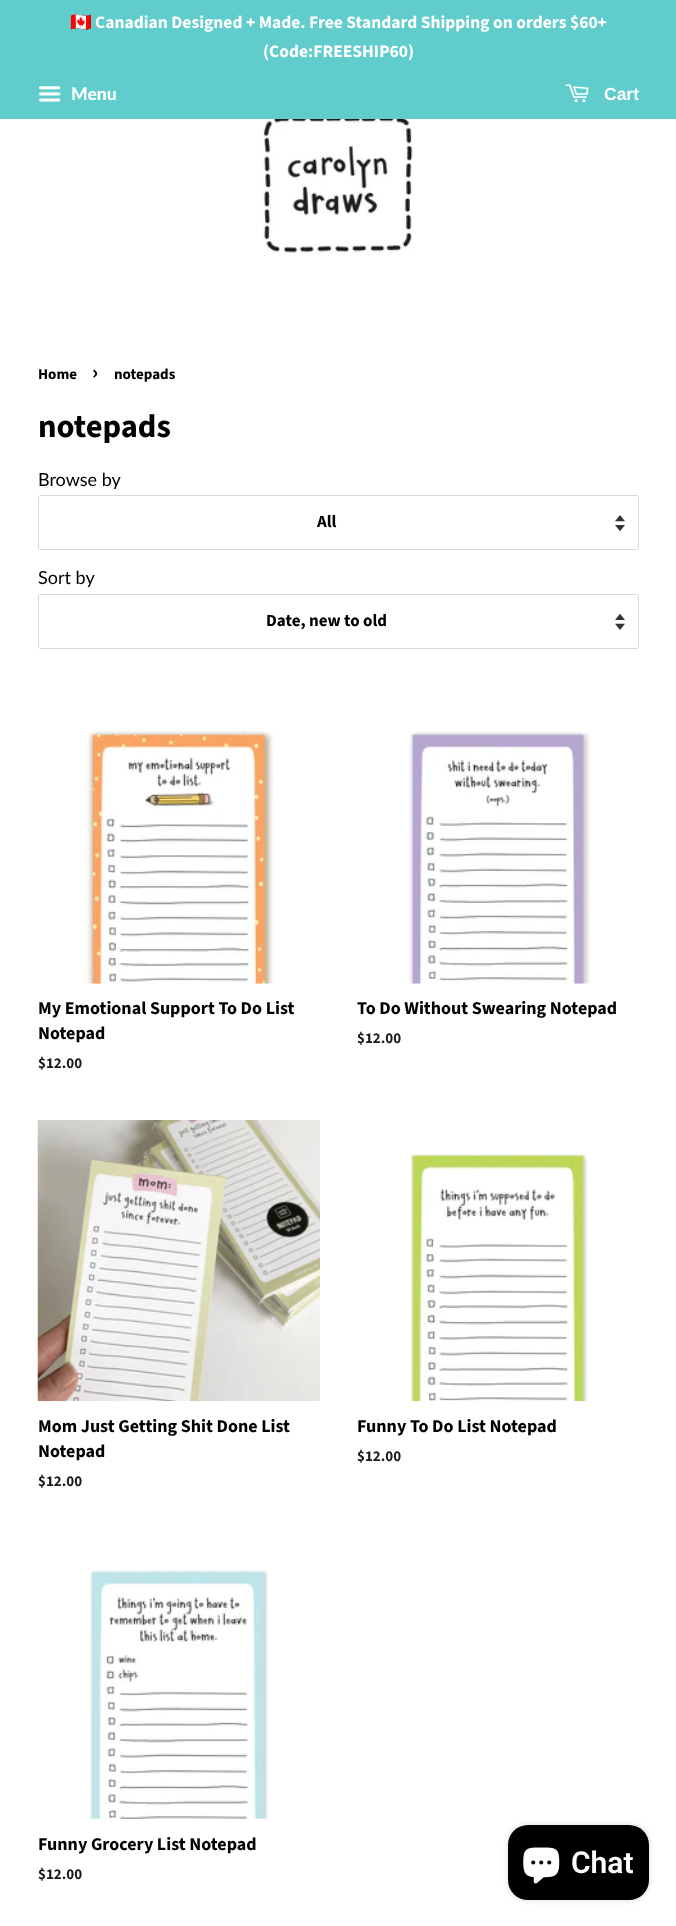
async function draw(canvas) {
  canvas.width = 676;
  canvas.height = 1926;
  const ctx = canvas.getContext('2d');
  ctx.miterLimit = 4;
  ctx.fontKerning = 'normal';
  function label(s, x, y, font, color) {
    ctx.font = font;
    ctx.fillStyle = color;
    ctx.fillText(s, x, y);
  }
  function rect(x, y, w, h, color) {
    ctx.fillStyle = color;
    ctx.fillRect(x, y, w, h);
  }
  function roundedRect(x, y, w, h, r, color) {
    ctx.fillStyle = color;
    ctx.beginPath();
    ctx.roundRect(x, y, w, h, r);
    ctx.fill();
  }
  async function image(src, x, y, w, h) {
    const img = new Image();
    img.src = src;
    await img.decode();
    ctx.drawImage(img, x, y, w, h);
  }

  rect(0, 0, 676, 1926, '#fff');
  rect(0, 0, 676, 119, '#60cccc');
  label('🇨🇦', 70, 28, 'bold 17.5px Noto Color Emoji', '#fff');
  label('Canadian Designed + Made. Free Standard Shipping on orders $60+', 95, 28, 'bold 17.5px Source Sans Pro', '#fff');
  label('(Code:FREESHIP60)', 263, 57, 'bold 17.5px Source Sans Pro', '#fff');
  await image('assets/img1.png', 39, 86, 22, 16);
  label('Menu', 71, 100, '900 17.5px Lato', '#fff');
  await image('assets/img2.png', 565, 84, 24, 19);
  label('Cart', 604, 100, 'bold 17.5px Liberation Sans', '#fff');
  await image('assets/img3.png', 263, 119, 150, 136);
  label('Home', 38, 379, 'bold 15px Source Sans Pro', '#000');
  label('›', 92, 379, 'bold 21px Source Sans Pro', '#000');
  label('notepads', 114, 379, 'bold 15px Source Sans Pro', '#000');
  label('notepads', 38, 437, 'bold 32.5px Source Sans Pro', '#000');
  label('Browse by', 38, 486, '18px Lato', '#000');
  await image('assets/img4.png', 615, 515, 10, 16);
  ctx.beginPath();
  ctx.roundRect(38.5, 495.5, 600, 54, 2);
  ctx.strokeStyle = '#d9d9d9';
  ctx.stroke();
  label('All', 317, 527, 'bold 17px Source Sans Pro', '#000');
  label('Sort by', 38, 584, '18px Lato', '#000');
  await image('assets/img5.png', 615, 614, 10, 16);
  ctx.beginPath();
  ctx.roundRect(38.5, 594.5, 600, 54, 2);
  ctx.stroke();
  label('Date, new to old', 266, 626, 'bold 17px Source Sans Pro', '#000');
  await image('assets/img6.png', 87, 730, 187, 254);
  label('My Emotional Support To Do List', 38, 1014, 'bold 18px Source Sans Pro', '#000');
  label('Notepad', 38, 1039, 'bold 18px Source Sans Pro', '#000');
  label('$12.00', 38, 1068, 'bold 15px Source Sans Pro', '#1a1a1a');
  await image('assets/img7.png', 409, 731, 182, 253);
  label('To Do Without Swearing Notepad', 357, 1014, 'bold 18px Source Sans Pro', '#000');
  label('$12.00', 357, 1043, 'bold 15px Source Sans Pro', '#1a1a1a');
  await image('assets/img8.png', 37, 1120, 283, 282);
  label('Mom Just Getting Shit Done List', 38, 1432, 'bold 18px Source Sans Pro', '#000');
  label('Notepad', 38, 1457, 'bold 18px Source Sans Pro', '#000');
  label('$12.00', 38, 1486, 'bold 15px Source Sans Pro', '#1a1a1a');
  await image('assets/img9.png', 410, 1153, 178, 249);
  label('Funny To Do List Notepad', 357, 1432, 'bold 18px Source Sans Pro', '#000');
  label('$12.00', 357, 1461, 'bold 15px Source Sans Pro', '#1a1a1a');
  await image('assets/img10.png', 90, 1570, 178, 249);
  label('Funny Grocery List Notepad', 38, 1850, 'bold 18px Source Sans Pro', '#000');
  label('$12.00', 38, 1879, 'bold 15px Source Sans Pro', '#1a1a1a');
  ctx.fillStyle = '#00000026';
  ctx.filter = 'blur(3px)';
  ctx.beginPath();
  ctx.roundRect(508, 1825, 141, 75, 20);
  ctx.fill();
  ctx.filter = 'none';
  roundedRect(508, 1825, 141, 75, 20, '#000');
  await image('assets/img11.png', 523, 1847, 37, 37);
  label('Chat', 571, 1873, '600 30px Roboto', '#fff');
}

draw(document.querySelector('canvas'));
